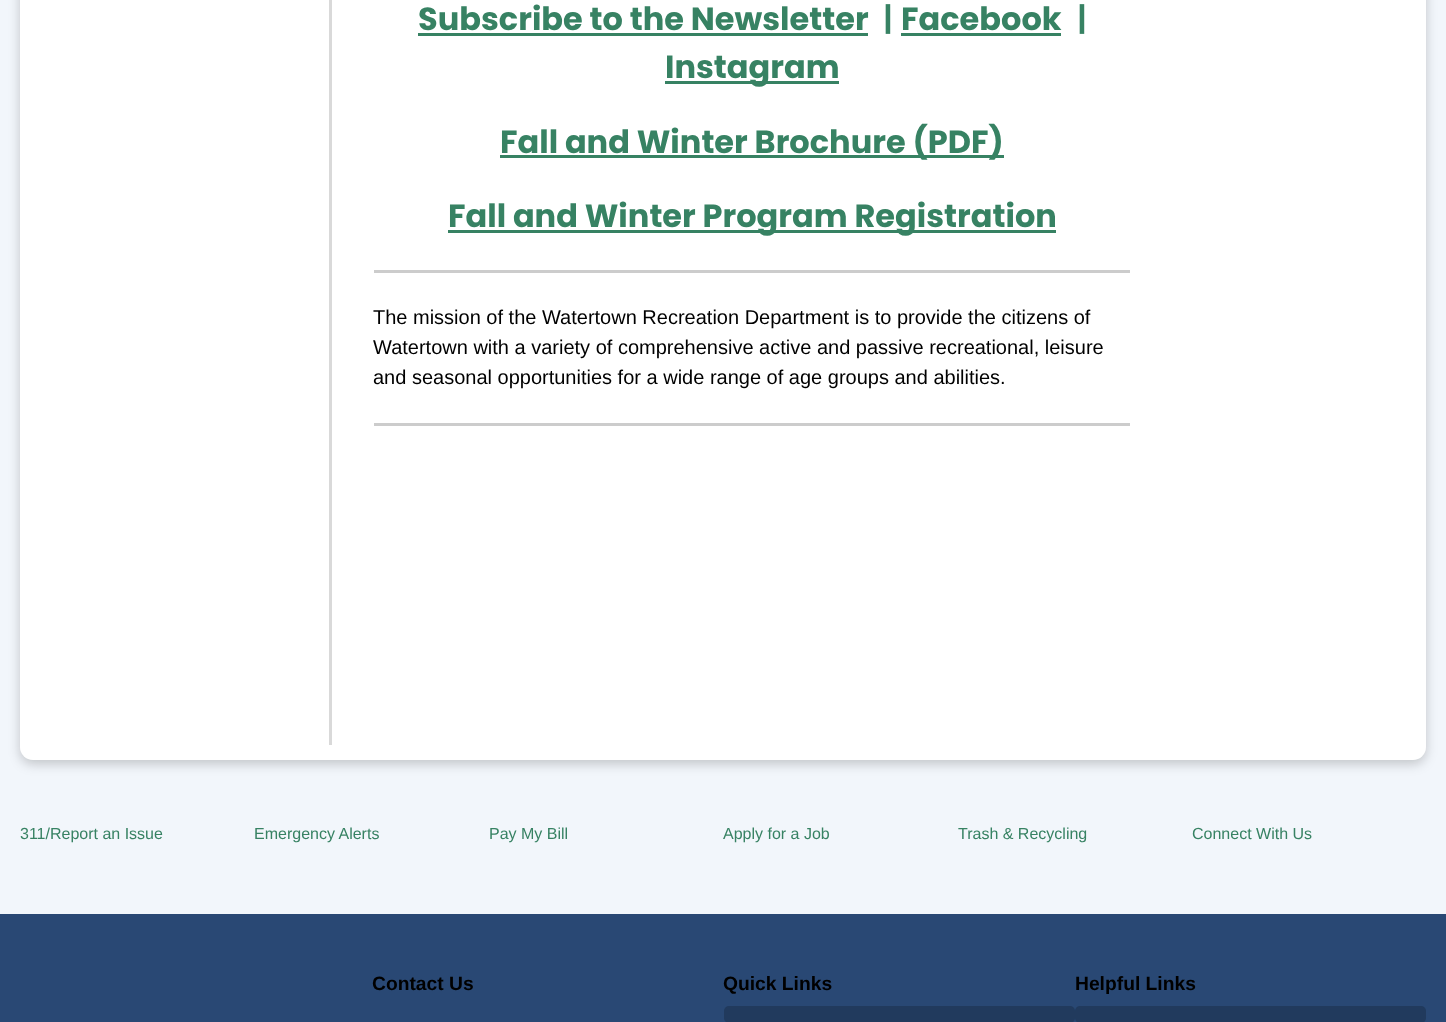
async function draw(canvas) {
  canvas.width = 1446;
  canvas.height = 1022;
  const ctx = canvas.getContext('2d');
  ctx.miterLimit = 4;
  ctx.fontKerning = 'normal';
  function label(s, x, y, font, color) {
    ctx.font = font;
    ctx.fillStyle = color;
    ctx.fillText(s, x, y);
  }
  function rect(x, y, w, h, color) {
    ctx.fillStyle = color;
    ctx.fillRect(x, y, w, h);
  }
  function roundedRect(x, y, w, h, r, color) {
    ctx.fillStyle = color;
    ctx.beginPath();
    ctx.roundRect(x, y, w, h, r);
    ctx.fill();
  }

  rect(0, 0, 1446, 1022, '#f2f6fb');
  ctx.fillStyle = '#00000033';
  ctx.filter = 'blur(6px)';
  ctx.beginPath();
  ctx.roundRect(20, -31, 1406, 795, 13);
  ctx.fill();
  ctx.filter = 'none';
  roundedRect(20, -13, 1406, 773, 13, '#fff');
  rect(329, 0, 3, 745, '#d9d9d9');
  label('Subscribe to the Newsletter', 418, 30, 'bold 32px Poppins', '#378263');
  rect(418, 33, 450, 3, '#378263');
  label('|', 883, 30, '600 32px Poppins', '#378263');
  label('Facebook', 901, 30, 'bold 32px Poppins', '#378263');
  rect(901, 33, 160, 3, '#378263');
  label('|', 1077, 30, '600 32px Poppins', '#378263');
  rect(665, 81, 174, 3, '#378263');
  label('Instagram', 665, 78, 'bold 32px Poppins', '#378263');
  rect(500, 155, 504, 3, '#378263');
  label('Fall and Winter Brochure (PDF)', 500, 153, 'bold 32px Poppins', '#378263');
  rect(448, 230, 608, 3, '#378263');
  label('Fall and Winter Program Registration', 448, 227, 'bold 32px Poppins', '#378263');
  rect(374, 270, 756, 3, '#ccc');
  label('The mission of the Watertown Recreation Department is to provide the citizens of', 373, 324, '20px Liberation Sans', '#000');
  label('Watertown with a variety of comprehensive active and passive recreational, leisure', 373, 354, '20px Liberation Sans', '#000');
  label('and seasonal opportunities for a wide range of age groups and abilities.', 373, 384, '20px Liberation Sans', '#000');
  rect(374, 423, 756, 3, '#ccc');
  label('311/Report an Issue', 20, 839, '16px Liberation Sans', '#378263');
  label('Emergency Alerts', 254, 839, '16px Liberation Sans', '#378263');
  label('Pay My Bill', 489, 839, '16px Liberation Sans', '#378263');
  label('Apply for a Job', 723, 839, '16px Liberation Sans', '#378263');
  label('Trash & Recycling', 958, 839, '16px Liberation Sans', '#378263');
  label('Connect With Us', 1192, 839, '16px Liberation Sans', '#378263');
  rect(0, 914, 1446, 108, '#294874');
  label('Contact Us', 372, 990, 'bold 19.25px Liberation Sans', '#000');
  label('Quick Links', 723, 990, 'bold 19.25px Liberation Sans', '#000');
  roundedRect(724, 1006, 351, 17, 5, '#254168');
  roundedRect(724, 1006, 351, 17, 5, '#0000001a');
  label('Helpful Links', 1075, 990, 'bold 19.25px Liberation Sans', '#000');
  roundedRect(1075, 1006, 351, 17, 5, '#254168');
  roundedRect(1075, 1006, 351, 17, 5, '#0000001a');
}

draw(document.querySelector('canvas'));
